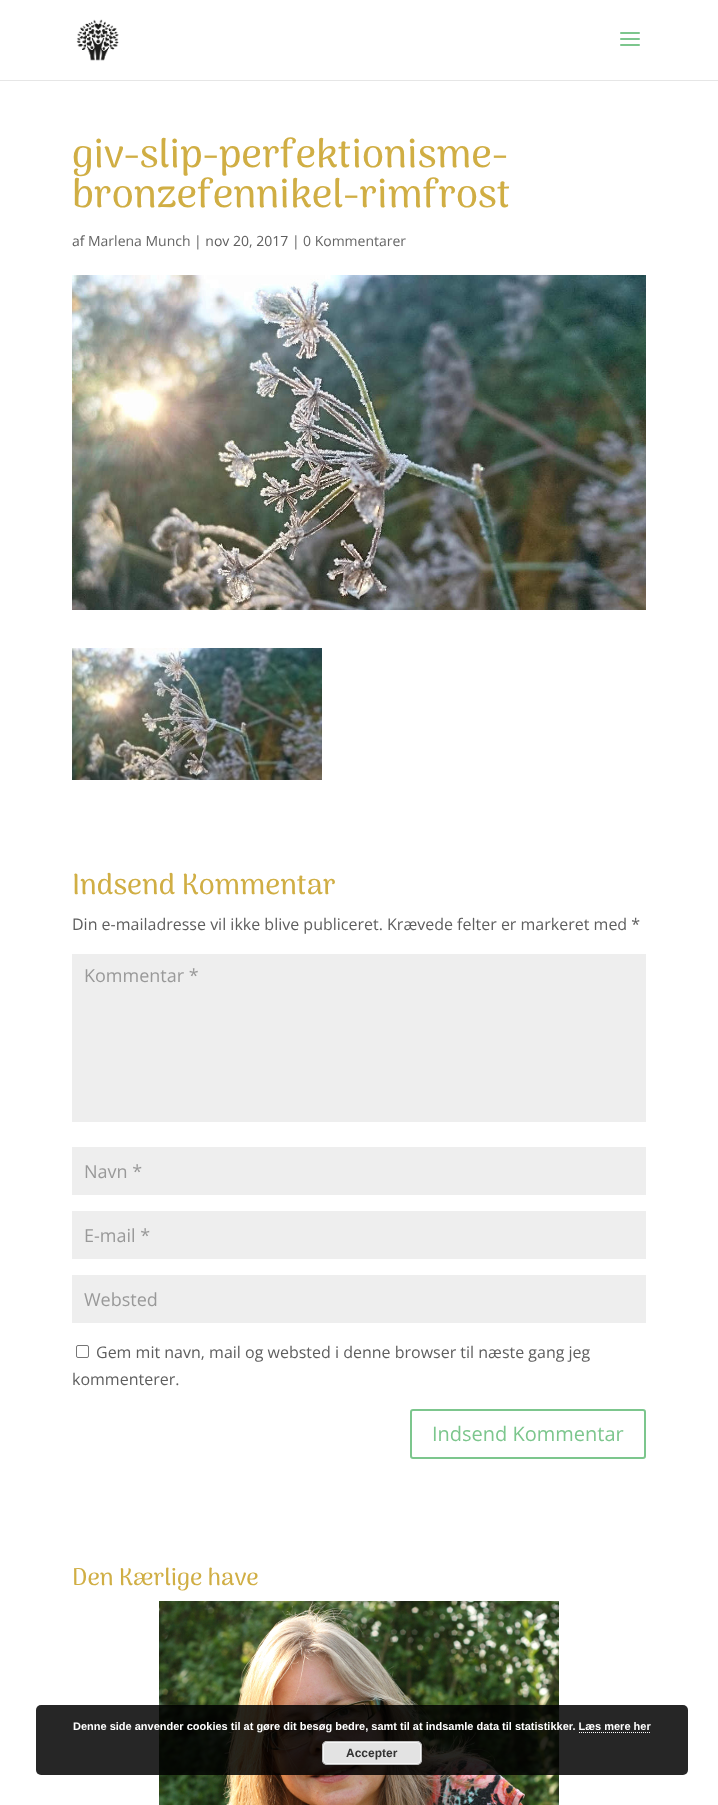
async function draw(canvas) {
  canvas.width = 718;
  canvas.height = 1805;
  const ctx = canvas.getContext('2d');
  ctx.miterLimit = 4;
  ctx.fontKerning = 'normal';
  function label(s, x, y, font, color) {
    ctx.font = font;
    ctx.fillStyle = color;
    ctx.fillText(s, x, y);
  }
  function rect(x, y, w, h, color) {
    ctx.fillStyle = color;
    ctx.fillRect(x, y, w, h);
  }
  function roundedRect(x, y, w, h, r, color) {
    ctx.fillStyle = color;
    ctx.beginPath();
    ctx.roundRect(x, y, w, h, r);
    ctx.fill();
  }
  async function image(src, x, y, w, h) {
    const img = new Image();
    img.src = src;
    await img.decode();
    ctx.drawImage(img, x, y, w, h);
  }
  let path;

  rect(0, 0, 718, 1805, '#fff');
  rect(0, 80, 718, 1, '#e6e6e6');
  await image('assets/img1.png', 76, 19, 43, 42);
  await image('assets/img2.png', 620, 32, 20, 14);
  label('giv-slip-perfektionisme-', 72, 167, '500 40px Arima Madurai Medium', '#d0ae44');
  label('bronzefennikel-rimfrost', 72, 207, '500 40px Arima Madurai Medium', '#d0ae44');
  label('af', 72, 246, '14px Open Sans', '#5e5e5e');
  label('Marlena Munch', 88, 246, '14px Open Sans', '#666');
  label('| nov 20, 2017 |', 194, 246, '14px Open Sans', '#5e5e5e');
  label('0 Kommentarer', 303, 246, '14px Open Sans', '#666');
  await image('assets/img3.png', 72, 275, 574, 335);
  await image('assets/img4.png', 72, 648, 250, 132);
  label('Indsend Kommentar', 72, 894, '500 29px Arima Madurai Medium', '#d0ae44');
  label('Din e-mailadresse vil ikke blive publiceret. Krævede felter er markeret med *', 72, 930, '16px Open Sans', '#5e5e5e');
  rect(72, 954, 574, 168, '#eee');
  label('Kommentar *', 84, 982, '18px Open Sans', '#999');
  rect(72, 1147, 574, 48, '#eee');
  label('Navn *', 84, 1178, '18px Open Sans', '#999');
  rect(72, 1211, 574, 48, '#eee');
  label('E-mail *', 84, 1242, '18px Open Sans', '#999');
  rect(72, 1275, 574, 48, '#eee');
  label('Websted', 84, 1306, '18px Open Sans', '#999');
  ctx.beginPath();
  ctx.roundRect(76.5, 1345.5, 12, 12, 1.5);
  ctx.strokeStyle = '#767676';
  ctx.stroke();
  label('Gem mit navn, mail og websted i denne browser til næste gang jeg', 96, 1358, '16px Open Sans', '#5e5e5e');
  label('kommenterer.', 72, 1385, '16px Open Sans', '#5e5e5e');
  ctx.beginPath();
  ctx.roundRect(411, 1410, 234, 48, 2);
  ctx.strokeStyle = '#7cc68d';
  ctx.lineWidth = 2;
  ctx.stroke();
  label('Indsend Kommentar', 432, 1441, '20px Open Sans', '#7cc68d');
  label('Den Kærlige have', 72, 1585, '500 24px Arima Madurai Medium', '#d0ae44');
  await image('assets/img5.png', 159, 1601, 400, 204);
  roundedRect(36, 1705, 652, 70, 5, '#000000d9');
  label('Denne side anvender cookies til at gøre dit besøg bedre, samt til at indsamle data til statistikker. Læs mere her', 73, 1730, 'bold 11px Liberation Sans', '#fff');
  path = new Path2D('M579 1732.5H651');
  ctx.strokeStyle = '#fff';
  ctx.lineWidth = 1;
  ctx.setLineDash([1, 1]);
  ctx.stroke(path);
  roundedRect(322, 1741, 100, 24, 5, '#e3e3e3');
  ctx.beginPath();
  ctx.roundRect(323.5, 1742.5, 97, 21, 3.5);
  ctx.strokeStyle = '#f6f6f6';
  ctx.setLineDash([]);
  ctx.stroke();
  ctx.beginPath();
  ctx.roundRect(322.5, 1741.5, 99, 23, 4.5);
  ctx.strokeStyle = '#bbb';
  ctx.stroke();
  label('Accepter', 346, 1757, 'bold 12px Liberation Sans', '#333');
}

draw(document.querySelector('canvas'));
